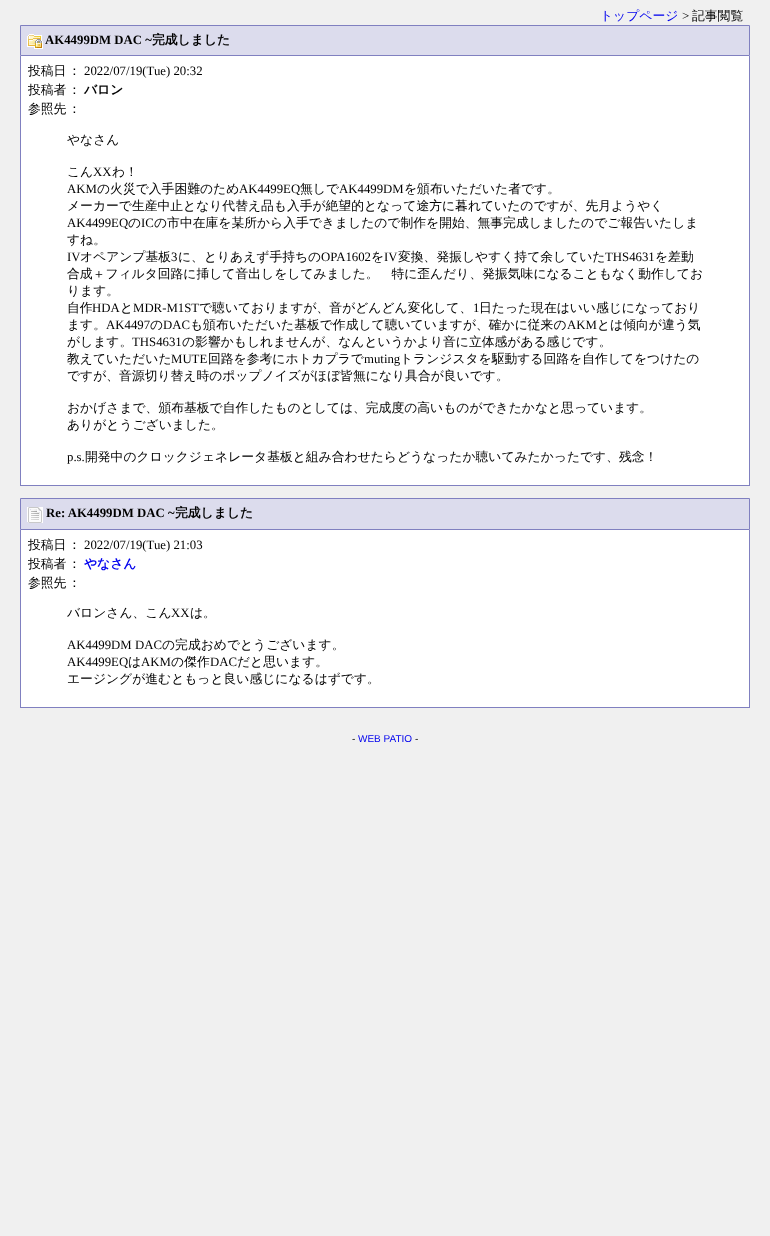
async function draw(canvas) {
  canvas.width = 770;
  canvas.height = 1236;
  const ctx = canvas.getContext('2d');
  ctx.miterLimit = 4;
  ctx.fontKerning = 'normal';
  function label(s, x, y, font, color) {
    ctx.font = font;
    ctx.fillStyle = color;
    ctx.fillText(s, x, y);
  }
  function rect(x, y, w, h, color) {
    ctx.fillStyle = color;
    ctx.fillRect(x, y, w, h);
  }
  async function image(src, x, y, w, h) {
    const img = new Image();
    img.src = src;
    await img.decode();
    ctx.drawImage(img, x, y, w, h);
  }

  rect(0, 0, 770, 1236, '#f0f0f0');
  label('トップページ', 600, 20, '500 12.8px WenQuanYi Zen Hei', '#00e');
  label('>', 682, 20, '12.8px Liberation Serif', '#000');
  label('記事閲覧', 692, 20, '500 12.8px WenQuanYi Zen Hei', '#000');
  ctx.fillStyle = '#dcdced';
  ctx.beginPath();
  ctx.rect(20.5, 25.5, 729, 30);
  ctx.fill();
  ctx.strokeStyle = '#8080c0';
  ctx.stroke();
  await image('assets/img1.png', 27, 34, 16, 15);
  label('AK4499DM DAC ~', 45, 44, 'bold 12.8px Liberation Serif', '#000');
  label('完成しました', 152, 44, 'bold 12.8px WenQuanYi Zen Hei', '#000');
  rect(21, 56, 728, 429, '#fff');
  rect(749, 56, 1, 430, '#8080c0');
  rect(20, 485, 730, 1, '#8080c0');
  rect(20, 56, 1, 430, '#8080c0');
  label('投稿日', 28, 75, '500 12.8px WenQuanYi Zen Hei', '#000');
  label('：', 68, 75, '500 12.8px WenQuanYi Zen Hei', '#000');
  label('2022/07/19(Tue) 20:32', 84, 75, '12.8px Liberation Serif', '#000');
  label('投稿者', 28, 94, '500 12.8px WenQuanYi Zen Hei', '#000');
  label('：', 68, 94, '500 12.8px WenQuanYi Zen Hei', '#000');
  label('バロン', 84, 94, 'bold 12.8px WenQuanYi Zen Hei', '#000');
  label('参照先', 28, 113, '500 12.8px WenQuanYi Zen Hei', '#000');
  label('：', 68, 113, '500 12.8px WenQuanYi Zen Hei', '#000');
  label('やなさん', 67, 144, '500 12.8px WenQuanYi Zen Hei', '#000');
  label('こん', 67, 176, '500 12.8px WenQuanYi Zen Hei', '#000');
  label('XX', 93, 176, '12.8px Liberation Serif', '#000');
  label('わ！', 112, 176, '500 12.8px WenQuanYi Zen Hei', '#000');
  label('AKM', 67, 193, '12.8px Liberation Serif', '#000');
  label('の火災で入手困難のため', 97, 193, '500 12.8px WenQuanYi Zen Hei', '#000');
  label('AK4499EQ', 239, 193, '12.8px Liberation Serif', '#000');
  label('無しで', 300, 193, '500 12.8px WenQuanYi Zen Hei', '#000');
  label('AK4499DM', 339, 193, '12.8px Liberation Serif', '#000');
  label('を頒布いただいた者です。', 404, 193, '500 12.8px WenQuanYi Zen Hei', '#000');
  label('メーカーで生産中止となり代替え品も入手が絶望的となって途方に暮れていたのですが、先月ようやく', 67, 210, '500 12.8px WenQuanYi Zen Hei', '#000');
  label('AK4499EQ', 67, 227, '12.8px Liberation Serif', '#000');
  label('の', 128, 227, '500 12.8px WenQuanYi Zen Hei', '#000');
  label('IC', 141, 227, '12.8px Liberation Serif', '#000');
  label('の市中在庫を某所から入手できましたので制作を開始、無事完成しましたのでご報告いたしま', 154, 227, '500 12.8px WenQuanYi Zen Hei', '#000');
  label('すね。', 67, 244, '500 12.8px WenQuanYi Zen Hei', '#000');
  label('IV', 67, 261, '12.8px Liberation Serif', '#000');
  label('オペアンプ基板', 80, 261, '500 12.8px WenQuanYi Zen Hei', '#000');
  label('3', 171, 261, '12.8px Liberation Serif', '#000');
  label('に、とりあえず手持ちの', 178, 261, '500 12.8px WenQuanYi Zen Hei', '#000');
  label('OPA1602', 321, 261, '12.8px Liberation Serif', '#000');
  label('を', 371, 261, '500 12.8px WenQuanYi Zen Hei', '#000');
  label('IV', 384, 261, '12.8px Liberation Serif', '#000');
  label('変換、発振しやすく持て余していた', 398, 261, '500 12.8px WenQuanYi Zen Hei', '#000');
  label('THS4631', 605, 261, '12.8px Liberation Serif', '#000');
  label('を差動', 655, 261, '500 12.8px WenQuanYi Zen Hei', '#000');
  label('合成＋フィルタ回路に挿して音出しをしてみました。　特に歪んだり、発振気味になることもなく動作してお', 67, 278, '500 12.8px WenQuanYi Zen Hei', '#000');
  label('ります。', 67, 295, '500 12.8px WenQuanYi Zen Hei', '#000');
  label('自作', 67, 312, '500 12.8px WenQuanYi Zen Hei', '#000');
  label('HDA', 92, 312, '12.8px Liberation Serif', '#000');
  label('と', 120, 312, '500 12.8px WenQuanYi Zen Hei', '#000');
  label('MDR-M1ST', 133, 312, '12.8px Liberation Serif', '#000');
  label('で聴いておりますが、音がどんどん変化して、', 199, 312, '500 12.8px WenQuanYi Zen Hei', '#000');
  label('1', 473, 312, '12.8px Liberation Serif', '#000');
  label('日たった現在はいい感じになっており', 479, 312, '500 12.8px WenQuanYi Zen Hei', '#000');
  label('ます。', 67, 329, '500 12.8px WenQuanYi Zen Hei', '#000');
  label('AK4497', 106, 329, '12.8px Liberation Serif', '#000');
  label('の', 150, 329, '500 12.8px WenQuanYi Zen Hei', '#000');
  label('DAC', 163, 329, '12.8px Liberation Serif', '#000');
  label('も頒布いただいた基板で作成して聴いていますが、確かに従来の', 190, 329, '500 12.8px WenQuanYi Zen Hei', '#000');
  label('AKM', 567, 329, '12.8px Liberation Serif', '#000');
  label('とは傾向が違う気', 597, 329, '500 12.8px WenQuanYi Zen Hei', '#000');
  label('がします。', 67, 346, '500 12.8px WenQuanYi Zen Hei', '#000');
  label('THS4631', 132, 346, '12.8px Liberation Serif', '#000');
  label('の影響かもしれませんが、なんというかより音に立体感がある感じです。', 182, 346, '500 12.8px WenQuanYi Zen Hei', '#000');
  label('教えていただいた', 67, 363, '500 12.8px WenQuanYi Zen Hei', '#000');
  label('MUTE', 171, 363, '12.8px Liberation Serif', '#000');
  label('回路を参考にホトカプラで', 208, 363, '500 12.8px WenQuanYi Zen Hei', '#000');
  label('muting', 364, 363, '12.8px Liberation Serif', '#000');
  label('トランジスタを駆動する回路を自作してをつけたの', 400, 363, '500 12.8px WenQuanYi Zen Hei', '#000');
  label('ですが、音源切り替え時のポップノイズがほぼ皆無になり具合が良いです。', 67, 380, '500 12.8px WenQuanYi Zen Hei', '#000');
  label('おかげさまで、頒布基板で自作したものとしては、完成度の高いものができたかなと思っています。', 67, 412, '500 12.8px WenQuanYi Zen Hei', '#000');
  label('ありがとうございました。', 67, 429, '500 12.8px WenQuanYi Zen Hei', '#000');
  label('p.s.', 67, 461, '12.8px Liberation Serif', '#000');
  label('開発中のクロックジェネレータ基板と組み合わせたらどうなったか聴いてみたかったです、残念！', 85, 461, '500 12.8px WenQuanYi Zen Hei', '#000');
  ctx.fillStyle = '#dcdced';
  ctx.beginPath();
  ctx.rect(20.5, 498.5, 729, 31);
  ctx.fill();
  ctx.stroke();
  await image('assets/img2.png', 27, 507, 16, 16);
  label('Re: AK4499DM DAC ~', 46, 517, 'bold 12.8px Liberation Serif', '#000');
  label('完成しました', 175, 517, 'bold 12.8px WenQuanYi Zen Hei', '#000');
  rect(21, 530, 728, 177, '#fff');
  rect(749, 530, 1, 178, '#8080c0');
  rect(20, 707, 730, 1, '#8080c0');
  rect(20, 530, 1, 178, '#8080c0');
  label('投稿日', 28, 549, '500 12.8px WenQuanYi Zen Hei', '#000');
  label('：', 68, 549, '500 12.8px WenQuanYi Zen Hei', '#000');
  label('2022/07/19(Tue) 21:03', 84, 549, '12.8px Liberation Serif', '#000');
  label('投稿者', 28, 568, '500 12.8px WenQuanYi Zen Hei', '#000');
  label('：', 68, 568, '500 12.8px WenQuanYi Zen Hei', '#000');
  label('やなさん', 84, 568, 'bold 12.8px WenQuanYi Zen Hei', '#00e');
  label('参照先', 28, 587, '500 12.8px WenQuanYi Zen Hei', '#000');
  label('：', 68, 587, '500 12.8px WenQuanYi Zen Hei', '#000');
  label('バロンさん、こん', 67, 617, '500 12.8px WenQuanYi Zen Hei', '#000');
  label('XX', 171, 617, '12.8px Liberation Serif', '#000');
  label('は。', 190, 617, '500 12.8px WenQuanYi Zen Hei', '#000');
  label('AK4499DM DAC', 67, 649, '12.8px Liberation Serif', '#000');
  label('の完成おめでとうございます。', 162, 649, '500 12.8px WenQuanYi Zen Hei', '#000');
  label('AK4499EQ', 67, 666, '12.8px Liberation Serif', '#000');
  label('は', 128, 666, '500 12.8px WenQuanYi Zen Hei', '#000');
  label('AKM', 141, 666, '12.8px Liberation Serif', '#000');
  label('の傑作', 171, 666, '500 12.8px WenQuanYi Zen Hei', '#000');
  label('DAC', 210, 666, '12.8px Liberation Serif', '#000');
  label('だと思います。', 237, 666, '500 12.8px WenQuanYi Zen Hei', '#000');
  label('エージングが進むともっと良い感じになるはずです。', 67, 683, '500 12.8px WenQuanYi Zen Hei', '#000');
  label('-', 352, 742, '10px Liberation Sans', '#000');
  label('WEB PATIO', 358, 742, '10px Liberation Sans', '#00e');
  label('-', 415, 742, '10px Liberation Sans', '#000');
}

draw(document.querySelector('canvas'));
